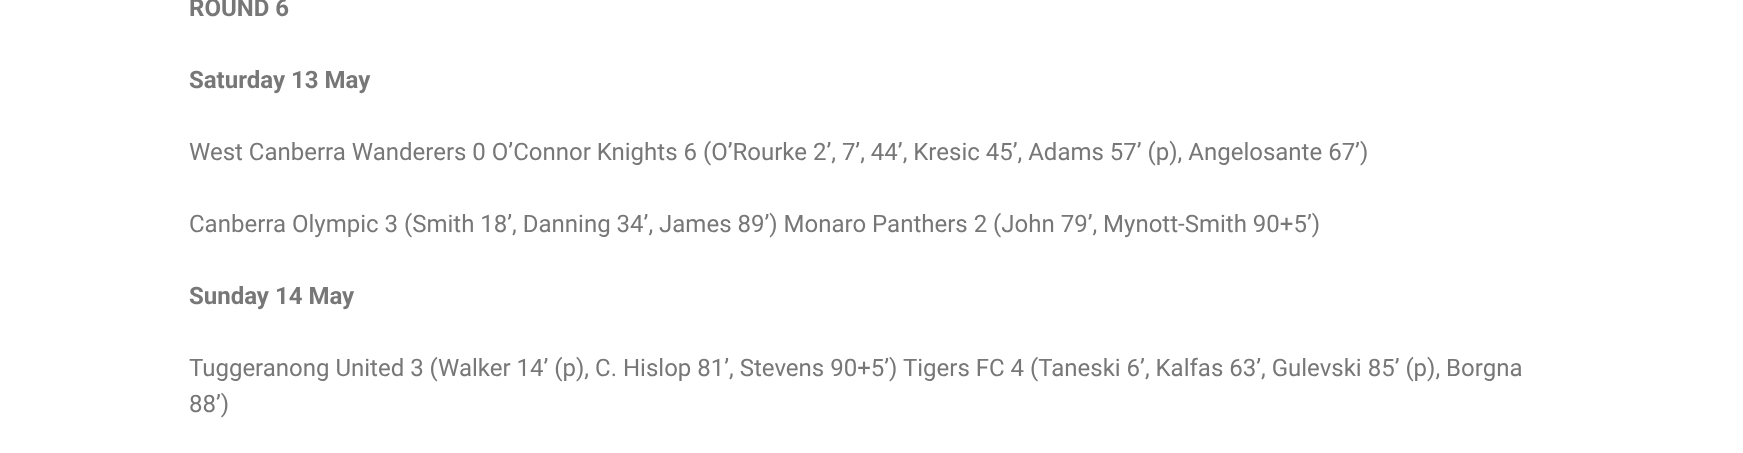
async function draw(canvas) {
  canvas.width = 1743;
  canvas.height = 453;
  const ctx = canvas.getContext('2d');
  ctx.miterLimit = 4;
  ctx.fontKerning = 'normal';
  function label(s, x, y, font, color) {
    ctx.font = font;
    ctx.fillStyle = color;
    ctx.fillText(s, x, y);
  }
  function rect(x, y, w, h, color) {
    ctx.fillStyle = color;
    ctx.fillRect(x, y, w, h);
  }

  rect(0, 0, 1743, 453, '#fff');
  label('ROUND 6', 189, 16, 'bold 24px Roboto', '#777');
  label('Saturday 13 May', 189, 88, 'bold 24px Roboto', '#777');
  label('West Canberra Wanderers 0 O’Connor Knights 6 (O’Rourke 2’, 7’, 44’, Kresic 45’, Adams 57’ (p), Angelosante 67’)', 189, 160, '24px Roboto', '#777');
  label('Canberra Olympic 3 (Smith 18’, Danning 34’, James 89’) Monaro Panthers 2 (John 79’, Mynott-Smith 90+5’)', 189, 232, '24px Roboto', '#777');
  label('Sunday 14 May', 189, 304, 'bold 24px Roboto', '#777');
  label('Tuggeranong United 3 (Walker 14’ (p), C. Hislop 81’, Stevens 90+5’) Tigers FC 4 (Taneski 6’, Kalfas 63’, Gulevski 85’ (p), Borgna', 189, 376, '24px Roboto', '#777');
  label('88’)', 189, 412, '24px Roboto', '#777');
}

draw(document.querySelector('canvas'));
